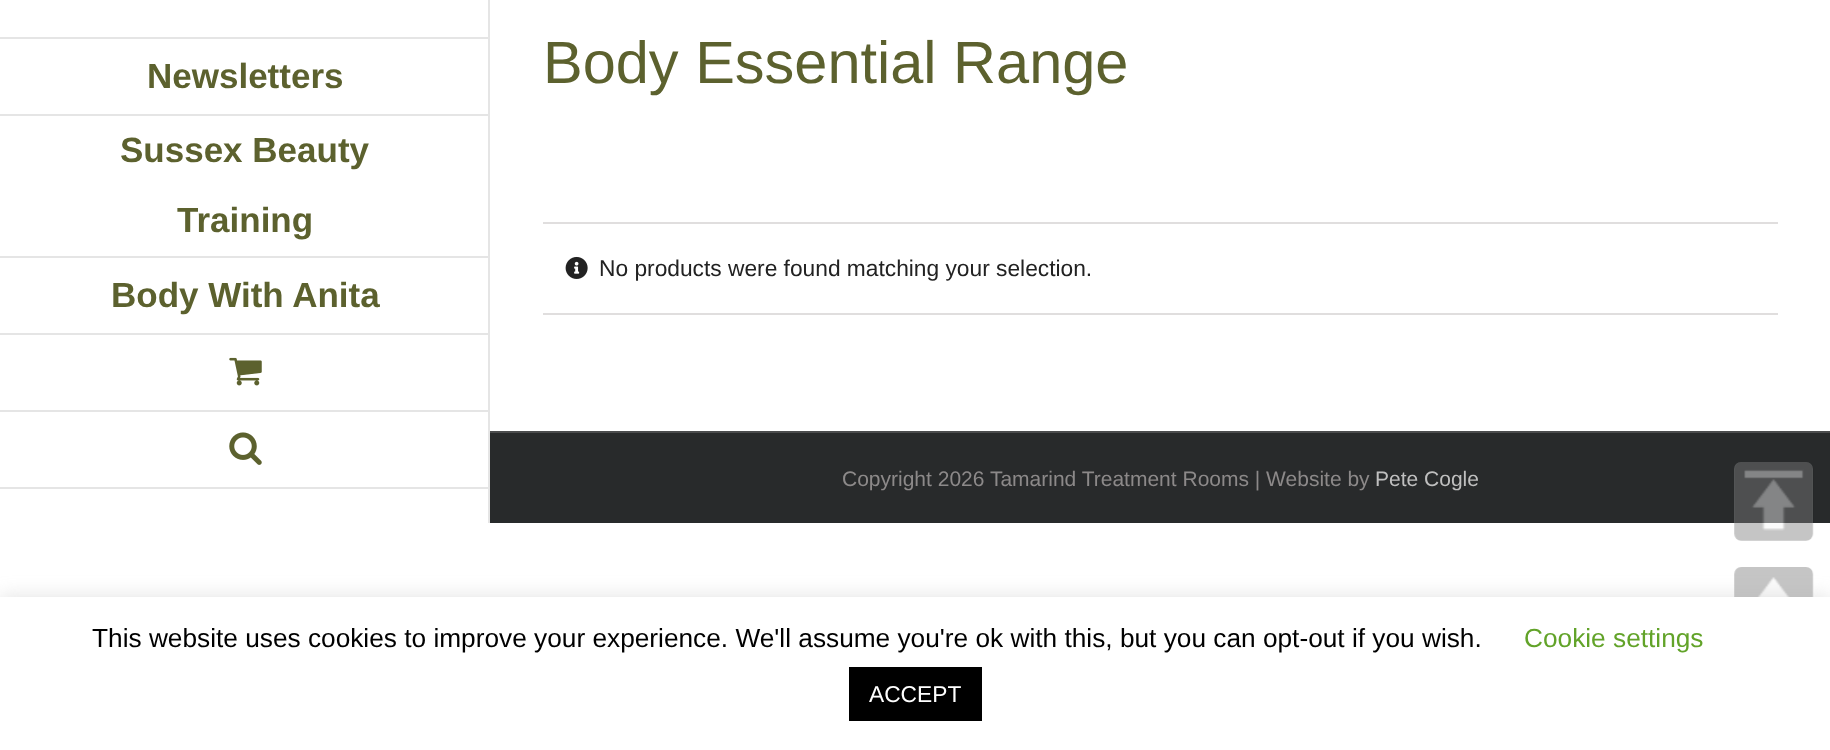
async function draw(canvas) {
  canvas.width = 1830;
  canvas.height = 750;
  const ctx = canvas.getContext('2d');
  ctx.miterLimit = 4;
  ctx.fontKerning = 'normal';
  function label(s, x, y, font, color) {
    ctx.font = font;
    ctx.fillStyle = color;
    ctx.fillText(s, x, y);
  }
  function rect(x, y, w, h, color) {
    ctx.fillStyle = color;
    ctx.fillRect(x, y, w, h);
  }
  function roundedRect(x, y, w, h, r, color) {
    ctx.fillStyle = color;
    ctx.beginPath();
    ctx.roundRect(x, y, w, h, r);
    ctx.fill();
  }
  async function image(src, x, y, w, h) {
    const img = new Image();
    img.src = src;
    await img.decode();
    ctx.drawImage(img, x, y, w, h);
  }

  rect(0, 0, 1830, 750, '#fff');
  rect(488, 0, 2, 523, '#e5e5e5');
  rect(0, 37, 490, 2, '#e5e5e5');
  rect(0, 114, 490, 2, '#e5e5e5');
  label('Newsletters', 147, 88, 'bold 35px Liberation Sans', '#5c612e');
  rect(0, 256, 490, 2, '#e5e5e5');
  label('Sussex Beauty', 120, 162, 'bold 35px Liberation Sans', '#5c612e');
  label('Training', 177, 232, 'bold 35px Liberation Sans', '#5c612e');
  rect(0, 333, 490, 2, '#e5e5e5');
  label('Body With Anita', 111, 307, 'bold 35px Liberation Sans', '#5c612e');
  rect(0, 410, 490, 2, '#e5e5e5');
  await image('assets/img1.png', 229, 357, 33, 29);
  rect(0, 487, 490, 2, '#e5e5e5');
  await image('assets/img2.png', 229, 432, 33, 33);
  label('Body Essential Range', 543, 83, '59.5px Liberation Sans', '#5c612e');
  rect(543, 222, 1235, 2, '#e0dede');
  rect(543, 313, 1235, 2, '#e0dede');
  await image('assets/img3.png', 565, 256, 23, 23);
  label('No products were found matching your selection.', 599, 276, '22.75px Liberation Sans', '#222');
  rect(490, 433, 1340, 90, '#282a2b');
  rect(490, 431, 1340, 2, '#4b4c4d');
  label('Copyright 2026 Tamarind Treatment Rooms | Website by', 842, 486, '21px Liberation Sans', '#8c8989');
  label('Pete Cogle', 1375, 486, '21px Liberation Sans', '#bfbfbf');
  roundedRect(1734, 462, 79, 79, 7, '#efefef4d');
  await image('assets/img4.png', 1734, 462, 80, 79);
  roundedRect(1734, 567, 79, 79, 7, '#efefef4d');
  await image('assets/img5.png', 1734, 567, 80, 30);
  ctx.fillStyle = '#acabab4d';
  ctx.filter = 'blur(9px)';
  ctx.beginPath();
  ctx.rect(0, 595, 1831, 154);
  ctx.fill();
  ctx.filter = 'none';
  rect(0, 597, 1830, 153, '#fff');
  label('This website uses cookies to improve your experience. We\'ll assume you\'re ok with this, but you can opt-out if you wish.', 92, 647, '26.25px Liberation Sans', '#000');
  label('Cookie settings', 1524, 647, '26.25px Liberation Sans', '#62a329');
  rect(849, 667, 133, 54, '#000');
  label('ACCEPT', 869, 702, '22.75px Liberation Sans', '#fff');
}

draw(document.querySelector('canvas'));
